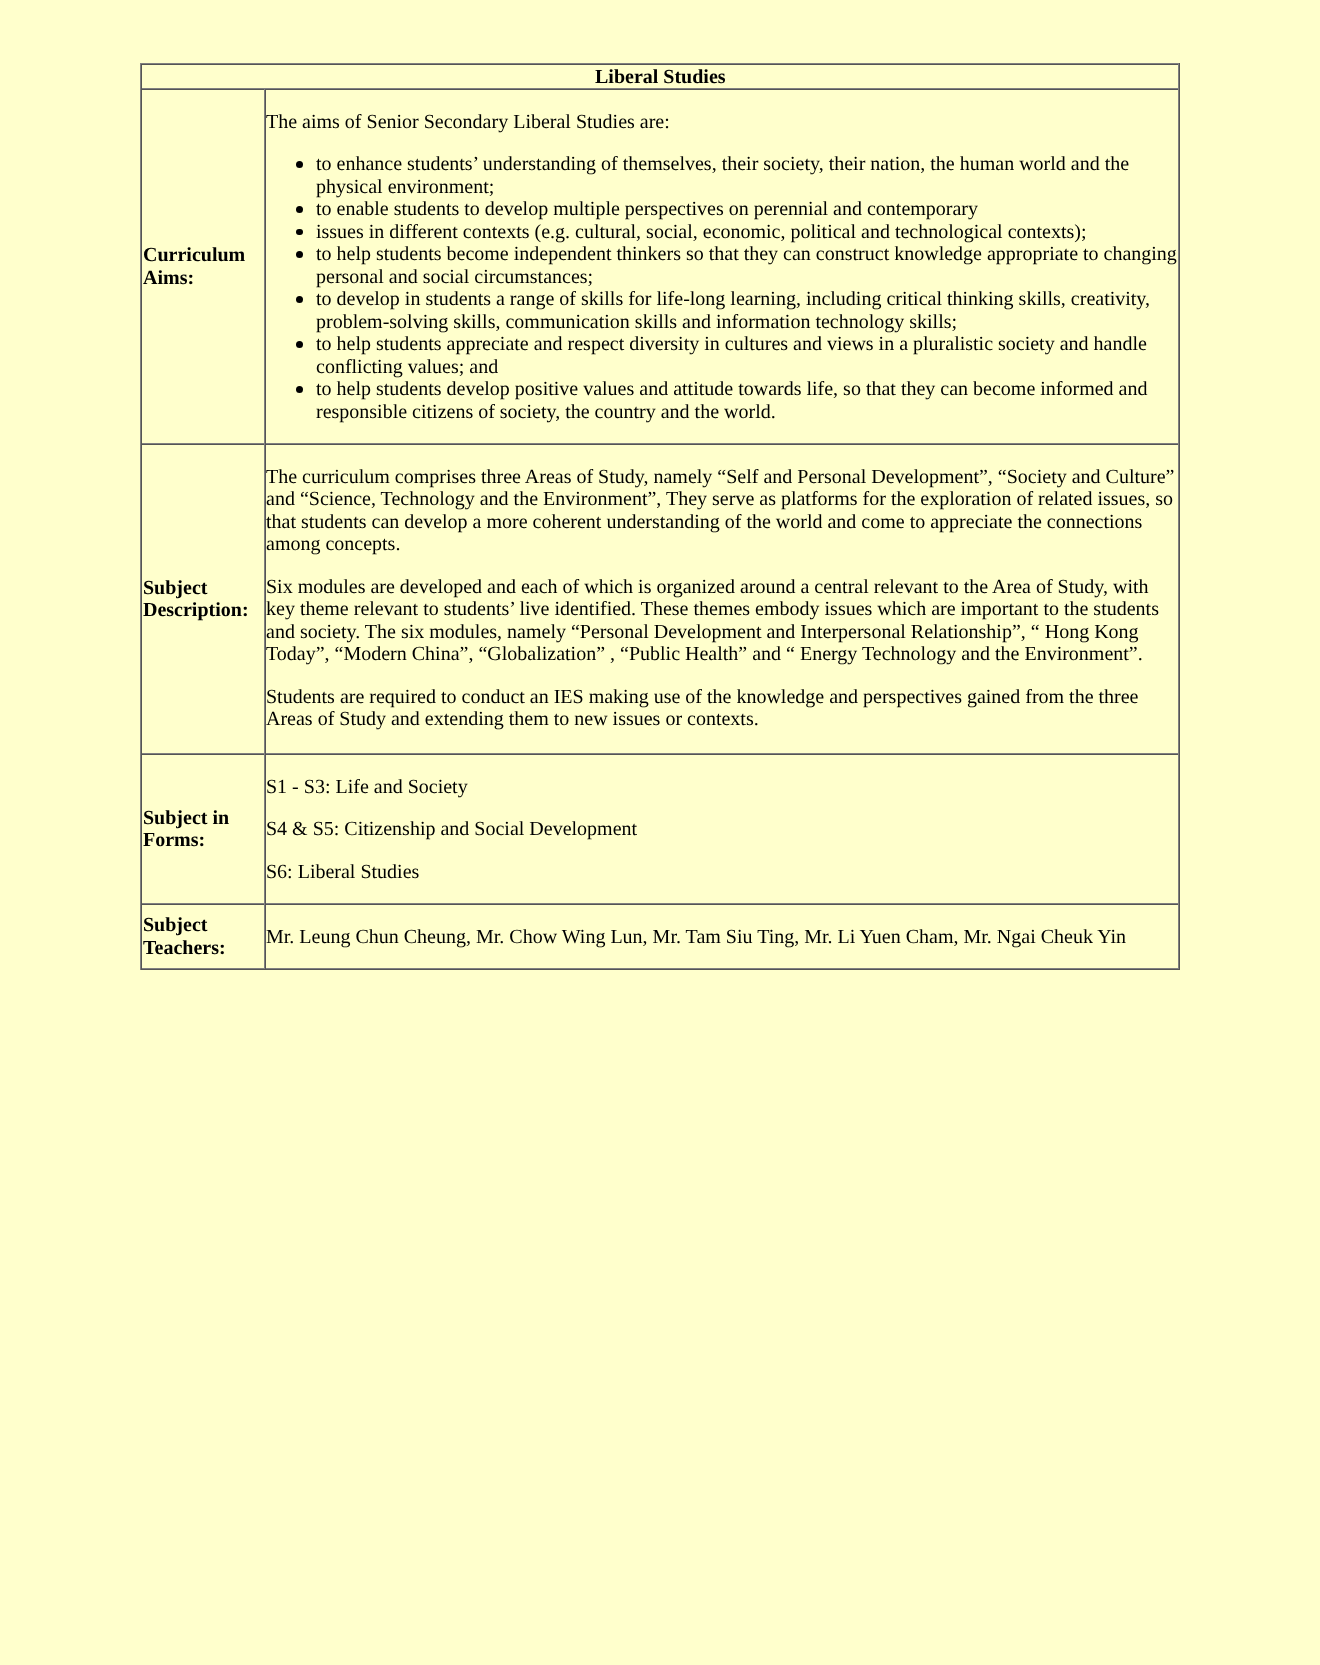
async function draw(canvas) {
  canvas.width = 1320;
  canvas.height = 1665;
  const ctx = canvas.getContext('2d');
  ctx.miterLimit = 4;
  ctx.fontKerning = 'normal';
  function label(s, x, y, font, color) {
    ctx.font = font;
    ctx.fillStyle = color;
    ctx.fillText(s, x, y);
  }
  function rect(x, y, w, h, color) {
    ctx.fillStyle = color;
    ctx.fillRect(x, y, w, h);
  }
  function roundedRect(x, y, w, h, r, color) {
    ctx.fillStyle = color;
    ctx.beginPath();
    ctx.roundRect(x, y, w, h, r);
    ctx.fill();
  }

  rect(0, 0, 1320, 1665, '#ffc');
  rect(140, 63, 1040, 1, '#808080');
  rect(1179, 63, 1, 907, '#555');
  rect(140, 969, 1040, 1, '#555');
  rect(140, 63, 1, 907, '#808080');
  rect(141, 64, 1038, 1, '#555');
  rect(1178, 64, 1, 25, '#808080');
  rect(141, 88, 1038, 1, '#808080');
  rect(141, 64, 1, 25, '#555');
  label('Liberal Studies', 595, 83, 'bold 20px Liberation Serif', '#000');
  rect(141, 89, 1038, 1, '#555');
  rect(264, 89, 1, 355, '#808080');
  rect(141, 443, 124, 1, '#808080');
  rect(141, 89, 1, 355, '#555');
  label('Curriculum', 143, 261, 'bold 20px Liberation Serif', '#000');
  label('Aims:', 143, 284, 'bold 20px Liberation Serif', '#000');
  rect(1178, 89, 1, 355, '#808080');
  rect(265, 443, 914, 1, '#808080');
  rect(265, 89, 1, 355, '#555');
  label('The aims of Senior Secondary Liberal Studies are:', 266, 128, '20px Liberation Serif', '#000');
  ctx.beginPath();
  ctx.arc(299.5, 164.5, 3.5, 0, 2 * Math.PI);
  ctx.fill();
  label('to enhance students’ understanding of themselves, their society, their nation, the human world and the', 316, 170, '20px Liberation Serif', '#000');
  label('physical environment;', 316, 193, '20px Liberation Serif', '#000');
  ctx.beginPath();
  ctx.arc(299.5, 209.5, 3.5, 0, 2 * Math.PI);
  ctx.fill();
  label('to enable students to develop multiple perspectives on perennial and contemporary', 316, 215, '20px Liberation Serif', '#000');
  roundedRect(296, 229, 7, 6, 3, '#000');
  label('issues in different contexts (e.g. cultural, social, economic, political and technological contexts);', 316, 238, '20px Liberation Serif', '#000');
  ctx.beginPath();
  ctx.arc(299.5, 254.5, 3.5, 0, 2 * Math.PI);
  ctx.fill();
  label('to help students become independent thinkers so that they can construct knowledge appropriate to changing', 316, 260, '20px Liberation Serif', '#000');
  label('personal and social circumstances;', 316, 283, '20px Liberation Serif', '#000');
  ctx.beginPath();
  ctx.arc(299.5, 299.5, 3.5, 0, 2 * Math.PI);
  ctx.fill();
  label('to develop in students a range of skills for life-long learning, including critical thinking skills, creativity,', 316, 305, '20px Liberation Serif', '#000');
  label('problem-solving skills, communication skills and information technology skills;', 316, 328, '20px Liberation Serif', '#000');
  ctx.beginPath();
  ctx.arc(299.5, 344.5, 3.5, 0, 2 * Math.PI);
  ctx.fill();
  label('to help students appreciate and respect diversity in cultures and views in a pluralistic society and handle', 316, 350, '20px Liberation Serif', '#000');
  label('conflicting values; and', 316, 373, '20px Liberation Serif', '#000');
  ctx.beginPath();
  ctx.arc(299.5, 389.5, 3.5, 0, 2 * Math.PI);
  ctx.fill();
  label('to help students develop positive values and attitude towards life, so that they can become informed and', 316, 395, '20px Liberation Serif', '#000');
  label('responsible citizens of society, the country and the world.', 316, 418, '20px Liberation Serif', '#000');
  rect(141, 444, 1038, 1, '#555');
  rect(264, 444, 1, 310, '#808080');
  rect(141, 753, 124, 1, '#808080');
  rect(141, 444, 1, 310, '#555');
  label('Subject', 143, 594, 'bold 20px Liberation Serif', '#000');
  label('Description:', 143, 616, 'bold 20px Liberation Serif', '#000');
  rect(1178, 444, 1, 310, '#808080');
  rect(265, 753, 914, 1, '#808080');
  rect(265, 444, 1, 310, '#555');
  label('The curriculum comprises three Areas of Study, namely “Self and Personal Development”, “Society and Culture”', 266, 483, '20px Liberation Serif', '#000');
  label('and “Science, Technology and the Environment”, They serve as platforms for the exploration of related issues, so', 266, 505, '20px Liberation Serif', '#000');
  label('that students can develop a more coherent understanding of the world and come to appreciate the connections', 266, 528, '20px Liberation Serif', '#000');
  label('among concepts.', 266, 550, '20px Liberation Serif', '#000');
  label('Six modules are developed and each of which is organized around a central relevant to the Area of Study, with', 266, 593, '20px Liberation Serif', '#000');
  label('key theme relevant to students’ live identified. These themes embody issues which are important to the students', 266, 615, '20px Liberation Serif', '#000');
  label('and society. The six modules, namely “Personal Development and Interpersonal Relationship”, “ Hong Kong', 266, 638, '20px Liberation Serif', '#000');
  label('Today”, “Modern China”, “Globalization” , “Public Health” and “ Energy Technology and the Environment”.', 266, 660, '20px Liberation Serif', '#000');
  label('Students are required to conduct an IES making use of the knowledge and perspectives gained from the three', 266, 703, '20px Liberation Serif', '#000');
  label('Areas of Study and extending them to new issues or contexts.', 266, 725, '20px Liberation Serif', '#000');
  rect(141, 754, 1038, 1, '#555');
  rect(264, 754, 1, 150, '#808080');
  rect(141, 903, 124, 1, '#808080');
  rect(141, 754, 1, 150, '#555');
  label('Subject in', 143, 824, 'bold 20px Liberation Serif', '#000');
  label('Forms:', 143, 846, 'bold 20px Liberation Serif', '#000');
  rect(1178, 754, 1, 150, '#808080');
  rect(265, 903, 914, 1, '#808080');
  rect(265, 754, 1, 150, '#555');
  label('S1 - S3: Life and Society', 266, 793, '20px Liberation Serif', '#000');
  label('S4 & S5: Citizenship and Social Development', 266, 835, '20px Liberation Serif', '#000');
  label('S6: Liberal Studies', 266, 878, '20px Liberation Serif', '#000');
  rect(141, 904, 1038, 1, '#555');
  rect(264, 904, 1, 65, '#808080');
  rect(141, 968, 124, 1, '#808080');
  rect(141, 904, 1, 65, '#555');
  label('Subject', 143, 931, 'bold 20px Liberation Serif', '#000');
  label('Teachers:', 143, 954, 'bold 20px Liberation Serif', '#000');
  rect(1178, 904, 1, 65, '#808080');
  rect(265, 968, 914, 1, '#808080');
  rect(265, 904, 1, 65, '#555');
  label('Mr. Leung Chun Cheung, Mr. Chow Wing Lun, Mr. Tam Siu Ting, Mr. Li Yuen Cham, Mr. Ngai Cheuk Yin', 266, 943, '20px Liberation Serif', '#000');
}

draw(document.querySelector('canvas'));
